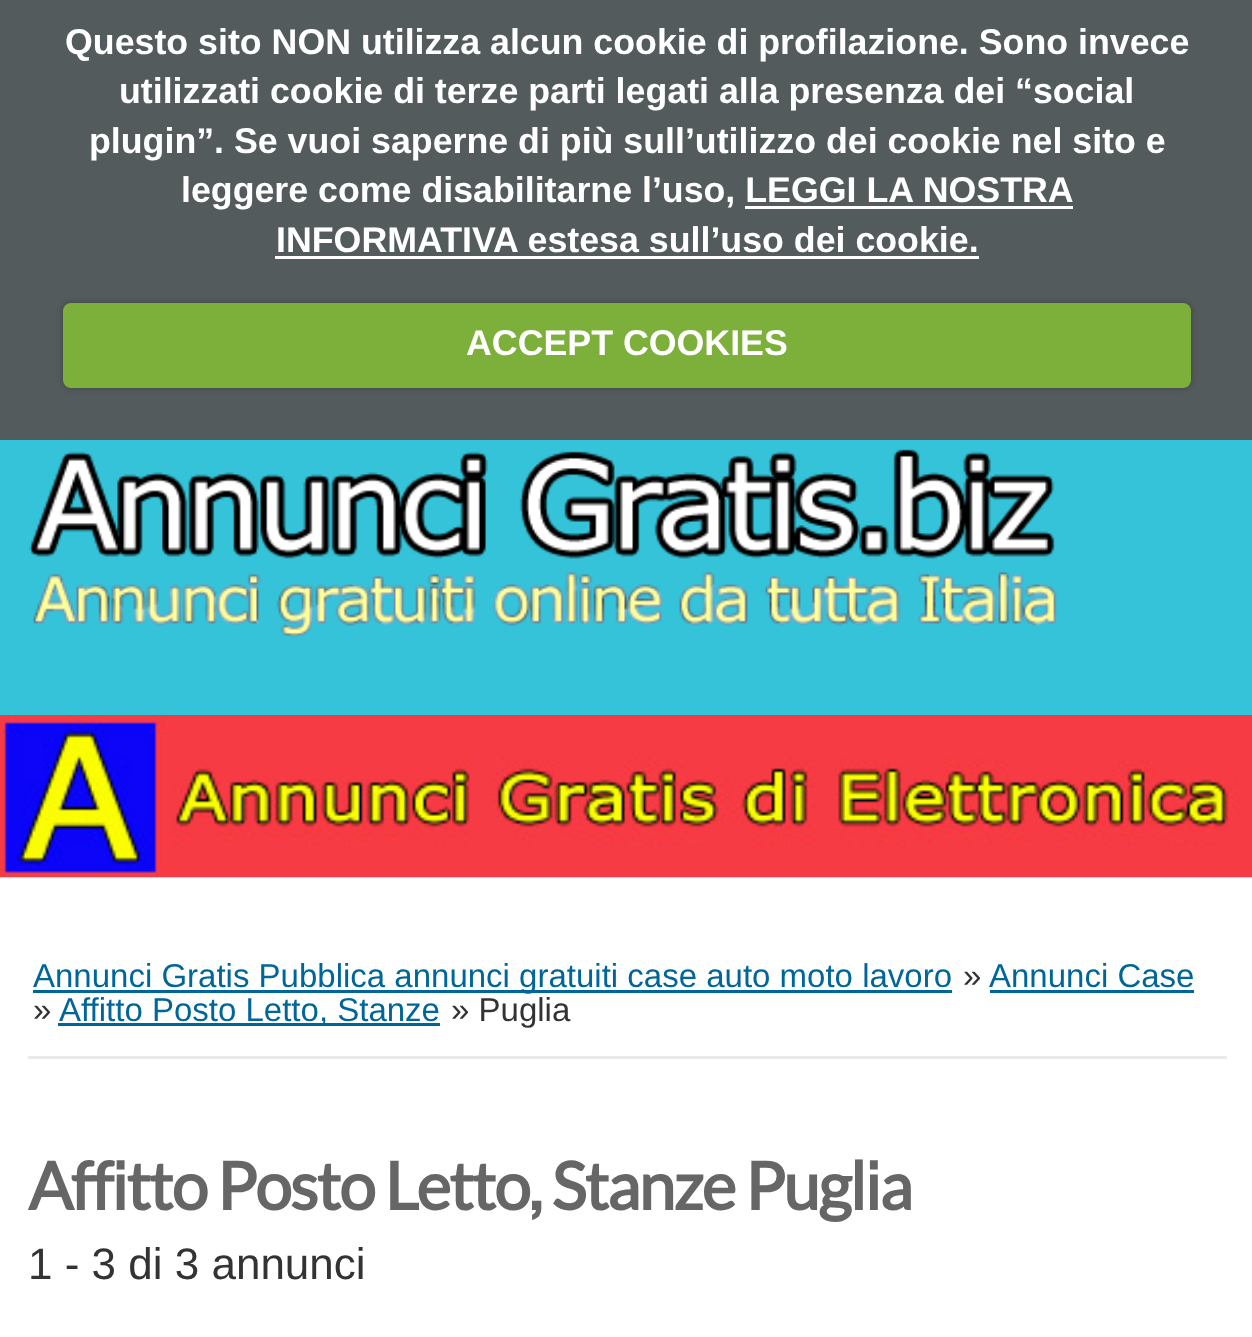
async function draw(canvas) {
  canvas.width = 1252;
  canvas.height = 1337;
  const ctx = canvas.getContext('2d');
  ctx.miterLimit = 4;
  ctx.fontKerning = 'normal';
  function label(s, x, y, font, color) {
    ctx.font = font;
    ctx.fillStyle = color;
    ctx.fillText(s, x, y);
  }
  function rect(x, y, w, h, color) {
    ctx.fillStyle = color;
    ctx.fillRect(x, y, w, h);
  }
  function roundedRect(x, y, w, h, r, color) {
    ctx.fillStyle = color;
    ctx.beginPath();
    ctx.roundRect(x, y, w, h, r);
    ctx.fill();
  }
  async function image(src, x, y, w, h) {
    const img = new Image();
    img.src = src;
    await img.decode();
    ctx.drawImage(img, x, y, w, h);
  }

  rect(0, 0, 1252, 1337, '#fff');
  rect(0, 0, 1252, 440, '#545b5d');
  label('Questo sito NON utilizza alcun cookie di profilazione. Sono invece', 65, 54, 'bold 35.75px Liberation Sans', '#fff');
  label('utilizzati cookie di terze parti legati alla presenza dei “social', 119, 103, 'bold 35.75px Liberation Sans', '#fff');
  label('plugin”. Se vuoi saperne di più sull’utilizzo dei cookie nel sito e', 89, 153, 'bold 35.75px Liberation Sans', '#fff');
  label('leggere come disabilitarne l’uso, LEGGI LA NOSTRA', 181, 202, 'bold 35.75px Liberation Sans', '#fff');
  label('INFORMATIVA estesa sull’uso dei cookie.', 276, 252, 'bold 35.75px Liberation Sans', '#fff');
  rect(745, 206, 328, 3, '#fff');
  rect(275, 256, 704, 3, '#fff');
  ctx.fillStyle = '#00000040';
  ctx.filter = 'blur(3px)';
  ctx.beginPath();
  ctx.roundRect(63, 303, 1128, 85, 8);
  ctx.fill();
  ctx.filter = 'none';
  roundedRect(63, 303, 1128, 85, 8, '#7daf3b');
  label('ACCEPT COOKIES', 466, 355, 'bold 35.75px Liberation Sans', '#fff');
  rect(0, 440, 1252, 275, '#35c3d9');
  await image('assets/img1.png', 29, 449, 1028, 189);
  await image('assets/img2.png', 0, 715, 1252, 163);
  rect(28, 1056, 1199, 3, '#eaeaea');
  rect(33, 990, 919, 3, '#069');
  label('Annunci Gratis Pubblica annunci gratuiti case auto moto lavoro', 33, 987, '33px Liberation Sans', '#069');
  label('»', 963, 987, '33px Liberation Sans', '#333');
  label('Annunci Case', 989, 987, '33px Liberation Sans', '#069');
  rect(990, 990, 204, 3, '#069');
  label('»', 33, 1021, '33px Liberation Sans', '#333');
  rect(58, 1023, 382, 3, '#069');
  label('Affitto Posto Letto, Stanze', 59, 1021, '33px Liberation Sans', '#069');
  label('» Puglia', 451, 1021, '33px Liberation Sans', '#333');
  ctx.letterSpacing = '-2px';
  label('Affitto Posto Letto, Stanze Puglia', 28, 1210, 'bold 66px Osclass', '#666');
  ctx.letterSpacing = '0px';
  label('1 - 3 di 3 annunci', 28, 1279, '44px Liberation Sans', '#333');
}

draw(document.querySelector('canvas'));
